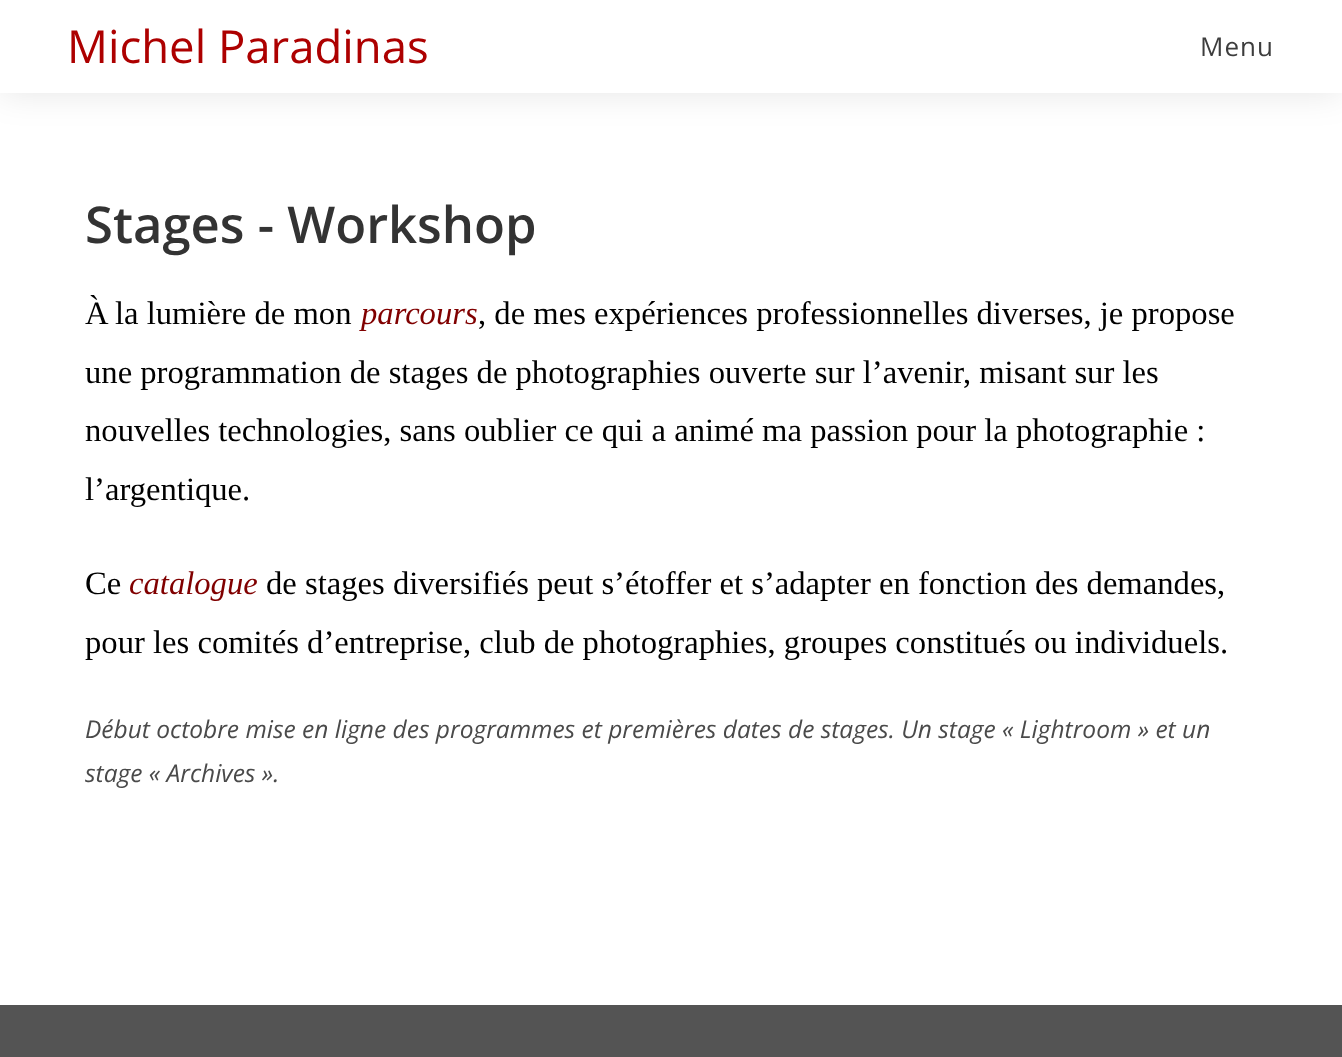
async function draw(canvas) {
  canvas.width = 1342;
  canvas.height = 1057;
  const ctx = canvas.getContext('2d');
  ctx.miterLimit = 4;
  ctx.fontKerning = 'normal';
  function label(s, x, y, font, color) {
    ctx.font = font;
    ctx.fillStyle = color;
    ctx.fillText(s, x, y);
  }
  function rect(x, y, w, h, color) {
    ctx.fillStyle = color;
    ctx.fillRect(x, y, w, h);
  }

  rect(0, 0, 1342, 1057, '#fff');
  ctx.fillStyle = '#0000001a';
  ctx.filter = 'blur(17.5px)';
  ctx.beginPath();
  ctx.rect(0, 0, 1342, 93);
  ctx.fill();
  ctx.filter = 'none';
  rect(0, 0, 1342, 93, '#fff');
  label('Michel Paradinas', 67, 63, '45.5px Open Sans', '#ad0000');
  ctx.letterSpacing = '1px';
  label('Menu', 1200, 56, '26px Open Sans', '#3d3d3d');
  ctx.letterSpacing = '0px';
  label('Stages - Workshop', 85, 243, '600 50.75px Open Sans', '#333');
  label('À la lumière de mon', 85, 324, '32.65px Liberation Serif', '#000');
  label('parcours', 361, 324, 'italic 32.65px Liberation Serif', '#800000');
  label(', de mes expériences professionnelles diverses, je propose', 478, 324, '32.65px Liberation Serif', '#000');
  label('une programmation de stages de photographies ouverte sur l’avenir, misant sur les', 85, 383, '32.65px Liberation Serif', '#000');
  label('nouvelles technologies, sans oublier ce qui a animé ma passion pour la photographie :', 85, 441, '32.65px Liberation Serif', '#000');
  label('l’argentique.', 85, 500, '32.65px Liberation Serif', '#000');
  label('Ce', 85, 594, '32.65px Liberation Serif', '#000');
  label('catalogue', 129, 594, 'italic 32.65px Liberation Serif', '#800000');
  label('de stages diversifiés peut s’étoffer et s’adapter en fonction des demandes,', 266, 594, '32.65px Liberation Serif', '#000');
  label('pour les comités d’entreprise, club de photographies, groupes constitués ou individuels.', 85, 653, '32.65px Liberation Serif', '#000');
  label('Début octobre mise en ligne des programmes et premières dates de stages. Un stage « Lightroom » et un', 85, 738, 'italic 24.5px Open Sans', '#4a4a4a');
  label('stage « Archives ».', 85, 782, 'italic 24.5px Open Sans', '#4a4a4a');
  rect(0, 1005, 1342, 52, '#545454');
}

draw(document.querySelector('canvas'));
